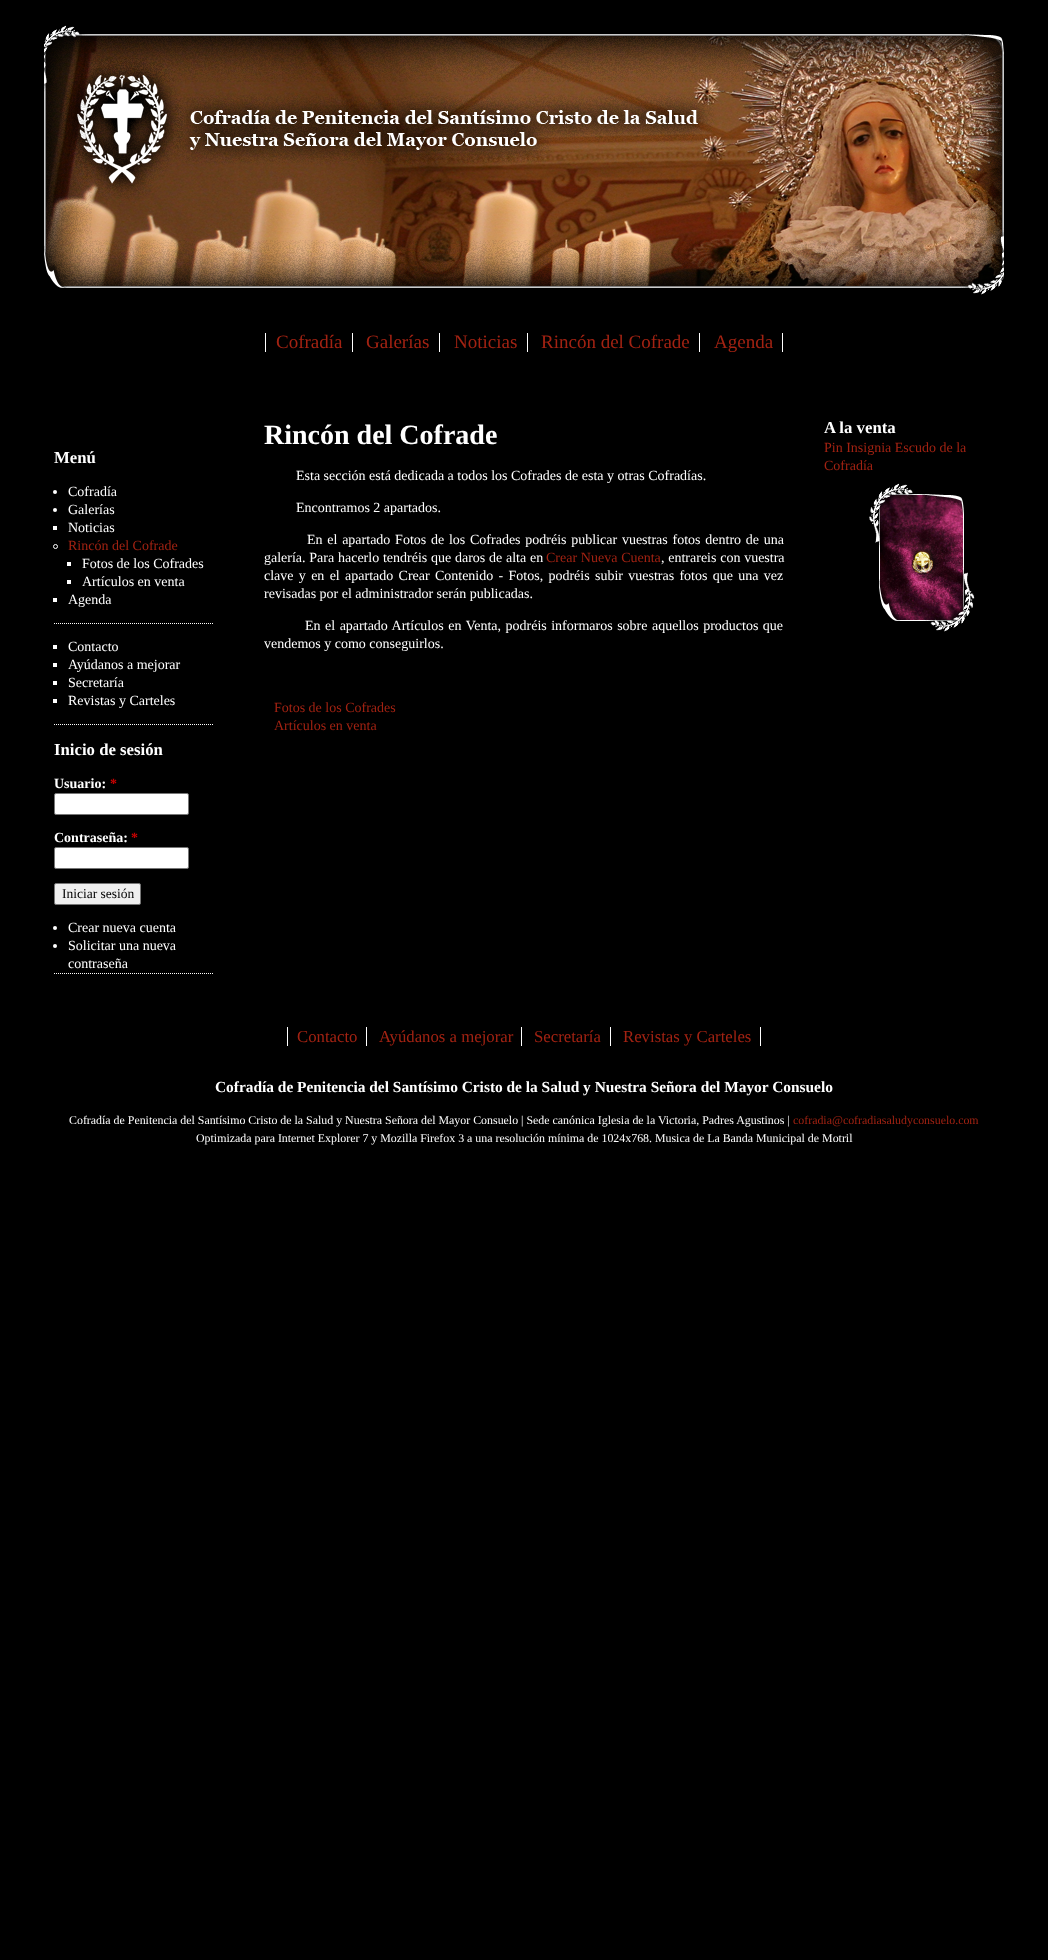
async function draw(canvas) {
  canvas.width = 1048;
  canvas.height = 1960;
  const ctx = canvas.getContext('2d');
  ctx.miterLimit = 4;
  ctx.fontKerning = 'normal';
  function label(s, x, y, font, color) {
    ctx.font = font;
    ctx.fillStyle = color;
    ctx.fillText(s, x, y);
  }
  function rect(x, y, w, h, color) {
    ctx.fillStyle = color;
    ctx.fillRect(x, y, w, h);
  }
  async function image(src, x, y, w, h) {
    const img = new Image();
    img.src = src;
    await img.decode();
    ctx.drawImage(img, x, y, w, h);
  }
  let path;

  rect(0, 0, 1048, 1960, '#000');
  await image('assets/img1.png', 44, 25, 960, 270);
  label('Cofradía', 276, 348, '19px Liberation Serif', '#a22212');
  rect(352, 333, 1, 19, '#fff');
  rect(265, 333, 1, 19, '#fff');
  label('Galerías', 366, 348, '19px Liberation Serif', '#a22212');
  rect(439, 333, 1, 19, '#fff');
  label('Noticias', 454, 348, '19px Liberation Serif', '#a22212');
  rect(527, 333, 1, 19, '#fff');
  label('Rincón del Cofrade', 541, 348, '19px Liberation Serif', '#a22212');
  rect(699, 333, 1, 19, '#fff');
  label('Agenda', 714, 348, '19px Liberation Serif', '#a22212');
  rect(782, 333, 1, 19, '#fff');
  path = new Path2D('M54 623.5H214');
  ctx.strokeStyle = '#fff';
  ctx.setLineDash([1, 1]);
  ctx.stroke(path);
  label('Menú', 54, 463, 'bold 16.75px Liberation Serif', '#fff');
  ctx.beginPath();
  ctx.arc(55, 492, 2, 0, 2 * Math.PI);
  ctx.fill();
  label('Cofradía', 68, 496, '14px Liberation Serif', '#fff');
  ctx.beginPath();
  ctx.arc(55, 510, 2, 0, 2 * Math.PI);
  ctx.fill();
  label('Galerías', 68, 514, '14px Liberation Serif', '#fff');
  rect(53, 526, 4, 4, '#fff');
  label('Noticias', 68, 532, '14px Liberation Serif', '#fff');
  ctx.beginPath();
  ctx.arc(55.5, 546.5, 2, 0, 2 * Math.PI);
  ctx.setLineDash([]);
  ctx.stroke();
  label('Rincón del Cofrade', 68, 550, '14px Liberation Serif', '#a22212');
  rect(67, 562, 4, 4, '#fff');
  label('Fotos de los Cofrades', 82, 568, '14px Liberation Serif', '#fff');
  rect(67, 580, 4, 4, '#fff');
  label('Artículos en venta', 82, 586, '14px Liberation Serif', '#fff');
  rect(53, 598, 4, 4, '#fff');
  label('Agenda', 68, 604, '14px Liberation Serif', '#fff');
  path = new Path2D('M54 724.5H214');
  ctx.setLineDash([1, 1]);
  ctx.stroke(path);
  rect(53, 645, 4, 4, '#fff');
  label('Contacto', 68, 651, '14px Liberation Serif', '#fff');
  rect(53, 663, 4, 4, '#fff');
  label('Ayúdanos a mejorar', 68, 669, '14px Liberation Serif', '#fff');
  rect(53, 681, 4, 4, '#fff');
  label('Secretaría', 68, 687, '14px Liberation Serif', '#fff');
  rect(53, 699, 4, 4, '#fff');
  label('Revistas y Carteles', 68, 705, '14px Liberation Serif', '#fff');
  path = new Path2D('M54 973.5H214');
  ctx.stroke(path);
  label('Inicio de sesión', 54, 755, 'bold 16.75px Liberation Serif', '#fff');
  label('Usuario:', 54, 788, 'bold 14px Liberation Serif', '#fff');
  label('*', 110, 788, 'bold 14px Liberation Serif', '#c00');
  ctx.fillStyle = '#fff';
  ctx.beginPath();
  ctx.roundRect(54.5, 793.5, 134, 21, 1.5);
  ctx.fill();
  ctx.strokeStyle = '#767676';
  ctx.setLineDash([]);
  ctx.stroke();
  label('Contraseña:', 54, 842, 'bold 14px Liberation Serif', '#fff');
  label('*', 131, 842, 'bold 14px Liberation Serif', '#c00');
  ctx.fillStyle = '#fff';
  ctx.beginPath();
  ctx.roundRect(54.5, 847.5, 134, 21, 1.5);
  ctx.fill();
  ctx.stroke();
  ctx.fillStyle = '#efefef';
  ctx.beginPath();
  ctx.roundRect(54.5, 883.5, 86, 21, 1.5);
  ctx.fill();
  ctx.stroke();
  label('Iniciar sesión', 62, 898, '13.5px Liberation Serif', '#000');
  ctx.fillStyle = '#fff';
  ctx.beginPath();
  ctx.arc(55, 928, 2, 0, 2 * Math.PI);
  ctx.fill();
  label('Crear nueva cuenta', 68, 932, '14px Liberation Serif', '#fff');
  ctx.beginPath();
  ctx.arc(55, 946, 2, 0, 2 * Math.PI);
  ctx.fill();
  label('Solicitar una nueva', 68, 950, '14px Liberation Serif', '#fff');
  label('contraseña', 68, 968, '14px Liberation Serif', '#fff');
  label('Rincón del Cofrade', 264, 444, 'bold 28px Liberation Serif', '#fff');
  label('Esta sección está dedicada a todos los Cofrades de esta y otras Cofradías.', 296, 480, '14px Liberation Serif', '#fff');
  label('Encontramos 2 apartados.', 296, 512, '14px Liberation Serif', '#fff');
  ctx.wordSpacing = '1.25px';
  label('En el apartado Fotos de los Cofrades podréis publicar vuestras fotos dentro de una', 307, 544, '14px Liberation Serif', '#fff');
  ctx.wordSpacing = '0.25px';
  label('galería. Para hacerlo tendréis que daros de alta en', 264, 562, '14px Liberation Serif', '#fff');
  label('Crear Nueva Cuenta', 546, 562, '14px Liberation Serif', '#a22212');
  label(', entrareis con vuestra', 661, 562, '14px Liberation Serif', '#fff');
  ctx.wordSpacing = '1.8px';
  label('clave y en el apartado Crear Contenido - Fotos, podréis subir vuestras fotos que una vez', 264, 580, '14px Liberation Serif', '#fff');
  ctx.wordSpacing = '0px';
  label('revisadas por el administrador serán publicadas.', 264, 598, '14px Liberation Serif', '#fff');
  ctx.wordSpacing = '1px';
  label('En el apartado Artículos en Venta, podréis informaros sobre aquellos productos que', 305, 630, '14px Liberation Serif', '#fff');
  ctx.wordSpacing = '0px';
  label('vendemos y como conseguirlos.', 264, 648, '14px Liberation Serif', '#fff');
  label('Fotos de los Cofrades', 274, 712, '14px Liberation Serif', '#a22212');
  label('Artículos en venta', 274, 730, '14px Liberation Serif', '#a22212');
  label('A la venta', 824, 433, 'bold 16.75px Liberation Serif', '#fff');
  label('Pin Insignia Escudo de la', 824, 452, '14px Liberation Serif', '#a22212');
  label('Cofradía', 824, 470, '14px Liberation Serif', '#a22212');
  await image('assets/img2.png', 869, 483, 106, 149);
  label('Contacto', 297, 1042, '16.75px Liberation Serif', '#a22212');
  rect(366, 1027, 1, 19, '#fff');
  rect(287, 1027, 1, 19, '#fff');
  label('Ayúdanos a mejorar', 379, 1042, '16.75px Liberation Serif', '#a22212');
  rect(521, 1027, 1, 19, '#fff');
  label('Secretaría', 534, 1042, '16.75px Liberation Serif', '#a22212');
  rect(610, 1027, 1, 19, '#fff');
  label('Revistas y Carteles', 623, 1042, '16.75px Liberation Serif', '#a22212');
  rect(760, 1027, 1, 19, '#fff');
  label('Cofradía de Penitencia del Santísimo Cristo de la Salud y Nuestra Señora del Mayor Consuelo', 215, 1092, 'bold 15.4px Liberation Serif', '#fff');
  label('Cofradía de Penitencia del Santísimo Cristo de la Salud y Nuestra Señora del Mayor Consuelo | Sede canónica Iglesia de la Victoria, Padres Agustinos |', 69, 1124, '11.9px Liberation Serif', '#fff');
  label('cofradia@cofradiasaludyconsuelo.com', 793, 1124, '11.9px Liberation Serif', '#a22212');
  label('Optimizada para Internet Explorer 7 y Mozilla Firefox 3 a una resolución mínima de 1024x768. Musica de La Banda Municipal de Motril', 196, 1142, '11.9px Liberation Serif', '#fff');
}

draw(document.querySelector('canvas'));
